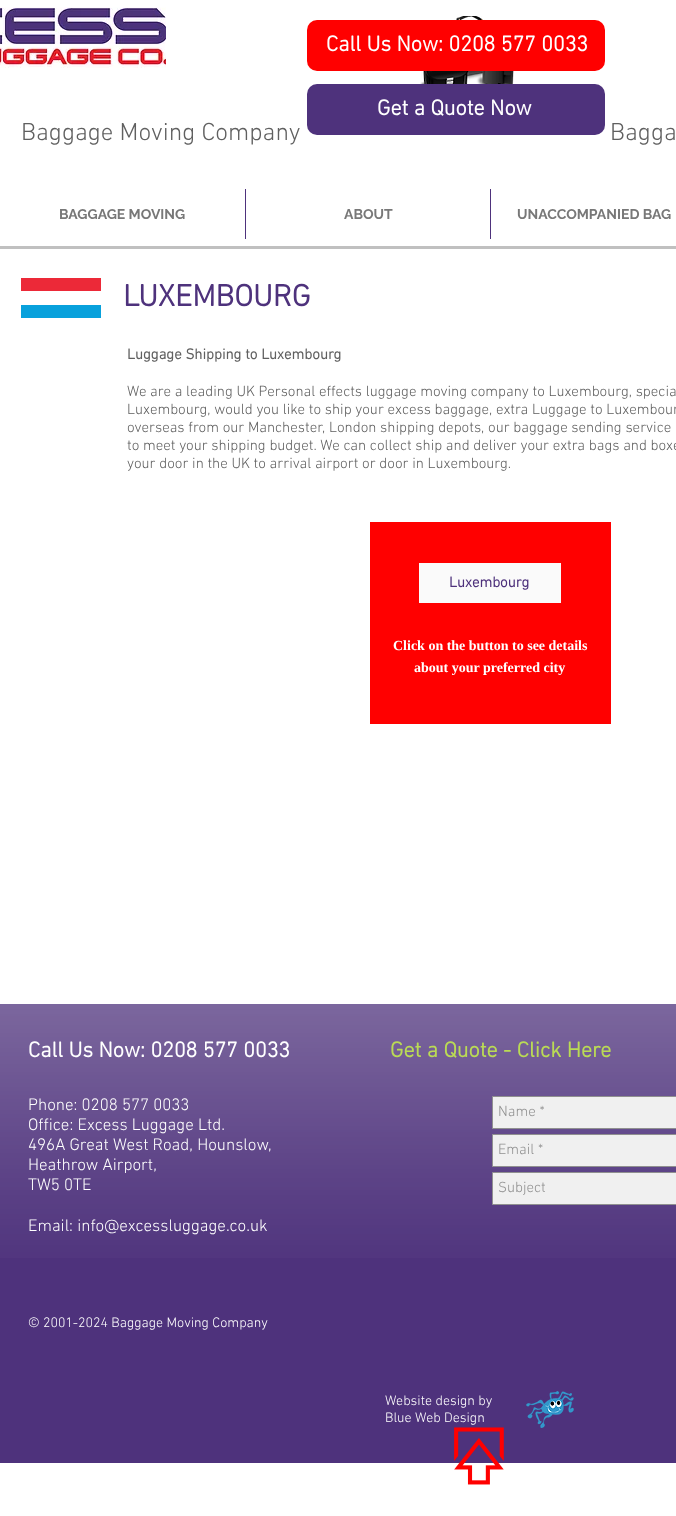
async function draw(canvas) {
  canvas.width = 676;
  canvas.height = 1516;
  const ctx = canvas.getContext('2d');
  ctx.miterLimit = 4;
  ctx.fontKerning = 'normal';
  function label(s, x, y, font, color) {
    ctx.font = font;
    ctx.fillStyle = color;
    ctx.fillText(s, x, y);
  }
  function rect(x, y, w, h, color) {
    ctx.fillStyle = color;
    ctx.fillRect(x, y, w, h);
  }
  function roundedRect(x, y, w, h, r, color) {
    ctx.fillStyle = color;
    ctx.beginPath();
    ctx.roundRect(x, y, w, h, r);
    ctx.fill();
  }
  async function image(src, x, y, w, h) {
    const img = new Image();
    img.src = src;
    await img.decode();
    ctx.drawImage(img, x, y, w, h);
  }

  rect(0, 0, 676, 1516, '#fff');
  await image('assets/img2.png', 420, 16, 94, 68);
  roundedRect(307, 20, 298, 51, 10, '#f00');
  label('Call Us Now: 0208 577 0033', 326, 51, 'bold 22px "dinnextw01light"', '#fff');
  roundedRect(307, 84, 298, 51, 10, '#4e327c');
  label('Get a Quote Now', 377, 115, 'bold 22px "dinnextw01light"', '#fff');
  await image('assets/img1.png', 0, 7, 166, 61);
  label('Baggage Moving Company', 21, 140, '300 25px "dinnextw01light"', '#606060');
  label('Bagga', 610, 140, '300 25px "dinnextw01light"', '#606060');
  label('BAGGAGE MOVING', 59, 219, 'bold 14px Raleway', '#787878');
  rect(245, 189, 1, 50, '#4e327c');
  label('ABOUT', 344, 219, 'bold 14px Raleway', '#787878');
  rect(490, 189, 1, 50, '#4e327c');
  label('UNACCOMPANIED BAG', 517, 219, 'bold 14px Raleway', '#787878');
  rect(0, 246, 676, 3, '#c0c0c0');
  rect(21, 278, 80, 13, '#ec2938');
  rect(21, 305, 80, 13, '#08a1dc');
  label('LUXEMBOURG', 123, 306, 'bold 31px "dinnextw01light"', '#4e327c');
  label('Luggage Shipping to Luxembourg', 127, 359, 'bold 15px "dinnextw01light"', '#606060');
  label('We are a leading UK Personal effects luggage moving company to Luxembourg, specia', 127, 396, '300 15px "dinnextw01light"', '#606060');
  label('Luxembourg, would you like to ship your excess baggage, extra Luggage to Luxembour', 127, 414, '300 15px "dinnextw01light"', '#606060');
  label('overseas from our Manchester, London shipping depots, our baggage sending service', 127, 432, '300 15px "dinnextw01light"', '#606060');
  label('to meet your shipping budget. We can collect ship and deliver your extra bags and boxe', 127, 450, '300 15px "dinnextw01light"', '#606060');
  label('your door in the UK to arrival airport or door in Luxembourg.', 127, 468, '300 15px "dinnextw01light"', '#606060');
  rect(370, 522, 241, 202, '#f00');
  rect(419, 563, 142, 40, '#fafafa');
  label('Luxembourg', 449, 587, 'bold 15px "dinnextw01light"', '#4e327c');
  label('Click on the button to see details', 393, 650, 'bold 14px Liberation Serif', '#fff');
  label('about your preferred city', 414, 672, 'bold 14px Liberation Serif', '#fff');
  rect(0, 1004, 676, 459, '#4e327c');
  await image('assets/img3.png', 0, 1004, 676, 254);
  label('Call Us Now: 0208 577 0033', 28, 1057, 'bold 22px "dinnextw01light"', '#fff');
  label('Get a Quote - Click Here', 390, 1057, 'bold 22px "dinnextw01light"', '#bada55');
  label('Phone: 0208 577 0033', 28, 1110, '300 17px "dinnextw01light"', '#fff');
  label('Office: Excess Luggage Ltd.', 28, 1130, '300 17px "dinnextw01light"', '#fff');
  label('496A Great West Road, Hounslow,', 28, 1150, '300 17px "dinnextw01light"', '#fff');
  label('Heathrow Airport,', 28, 1170, '300 17px "dinnextw01light"', '#fff');
  label('TW5 0TE', 28, 1190, '300 17px "dinnextw01light"', '#fff');
  label('Email: info@excessluggage.co.uk', 28, 1231, '300 17px "dinnextw01light"', '#fff');
  ctx.fillStyle = '#f0f0f0';
  ctx.beginPath();
  ctx.rect(492.5, 1096.5, 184, 32);
  ctx.fill();
  ctx.strokeStyle = '#909090';
  ctx.stroke();
  label('Name *', 498, 1116, '300 15px "dinnextw01light"', '#909090');
  ctx.fillStyle = '#f0f0f0';
  ctx.beginPath();
  ctx.rect(492.5, 1134.5, 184, 32);
  ctx.fill();
  ctx.stroke();
  label('Email *', 498, 1154, '300 15px "dinnextw01light"', '#909090');
  ctx.fillStyle = '#f0f0f0';
  ctx.beginPath();
  ctx.rect(492.5, 1172.5, 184, 32);
  ctx.fill();
  ctx.stroke();
  label('Subject', 498, 1192, '300 15px "dinnextw01light"', '#909090');
  label('© 2001-2024 Baggage Moving Company', 28, 1327, '300 14px "dinnextw01light"', '#fff');
  label('Website design by', 385, 1405, '300 14px "dinnextw01light"', '#fff');
  label('Blue Web Design', 385, 1422, '300 14px "dinnextw01light"', '#fff');
  await image('assets/img4.png', 526, 1391, 48, 37);
  await image('assets/img5.png', 454, 1427, 50, 58);
}

draw(document.querySelector('canvas'));
